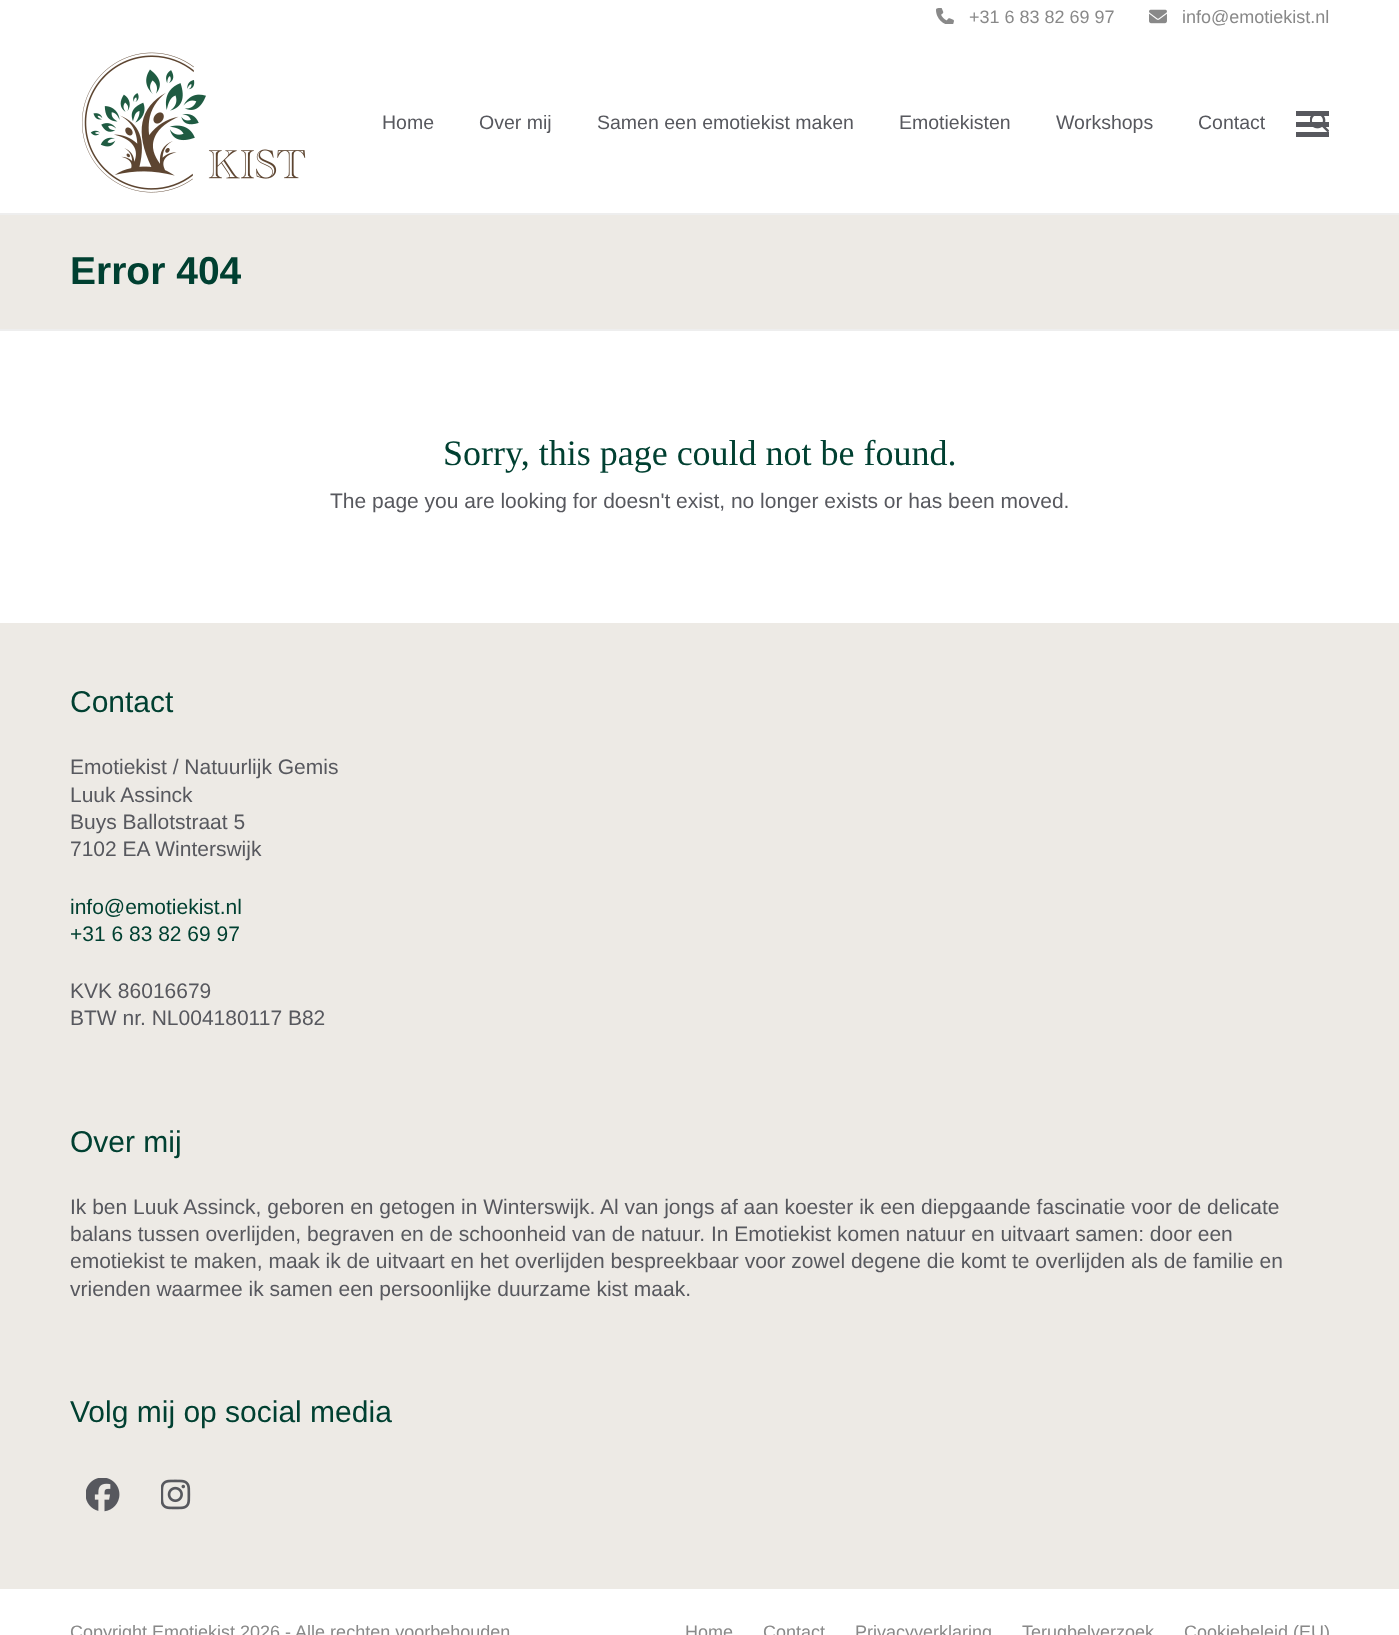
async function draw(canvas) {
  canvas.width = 1399;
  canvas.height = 1635;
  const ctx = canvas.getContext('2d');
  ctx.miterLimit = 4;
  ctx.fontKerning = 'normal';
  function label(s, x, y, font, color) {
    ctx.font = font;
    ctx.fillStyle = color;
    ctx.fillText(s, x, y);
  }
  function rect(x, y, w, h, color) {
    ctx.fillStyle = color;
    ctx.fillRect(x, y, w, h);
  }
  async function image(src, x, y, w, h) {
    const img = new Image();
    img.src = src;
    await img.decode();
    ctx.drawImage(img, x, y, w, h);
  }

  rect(0, 0, 1399, 1635, '#fff');
  await image('assets/img1.png', 936, 8, 18, 16);
  label('+31 6 83 82 69 97', 969, 23, '18px Liberation Sans', '#898989');
  await image('assets/img2.png', 1149, 9, 18, 15);
  label('info@emotiekist.nl', 1182, 23, '18px Liberation Sans', '#898989');
  await image('assets/img3.png', 82, 52, 224, 141);
  label('Home', 382, 129, '19.5px Liberation Sans', '#57585e');
  label('Over mij', 479, 129, '19.5px Liberation Sans', '#57585e');
  label('Samen een emotiekist maken', 597, 129, '19.5px Liberation Sans', '#57585e');
  label('Emotiekisten', 899, 129, '19.5px Liberation Sans', '#57585e');
  label('Workshops', 1056, 129, '19.5px Liberation Sans', '#57585e');
  label('Contact', 1198, 129, '19.5px Liberation Sans', '#57585e');
  await image('assets/img4.png', 1310, 116, 19, 16);
  rect(1296, 122, 33, 5, '#57585e');
  rect(1296, 111, 33, 5, '#57585e');
  rect(1296, 132, 33, 5, '#57585e');
  rect(0, 215, 1399, 114, '#edeae5');
  rect(0, 213, 1399, 2, '#eee');
  rect(0, 329, 1399, 2, '#eee');
  label('Error 404', 70, 284, 'bold 39px Liberation Sans', '#004031');
  label('Sorry, this page could not be found.', 443, 465, '36px Liberation Serif', '#004031');
  label('The page you are looking for doesn\'t exist, no longer exists or has been moved.', 330, 508, '21px Liberation Sans', '#57585e');
  rect(0, 623, 1399, 966, '#edeae5');
  label('Contact', 70, 712, '30px Liberation Sans', '#004031');
  label('Emotiekist / Natuurlijk Gemis', 70, 774, '21px Liberation Sans', '#57585e');
  label('Luuk Assinck', 70, 802, '21px Liberation Sans', '#57585e');
  label('Buys Ballotstraat 5', 70, 829, '21px Liberation Sans', '#57585e');
  label('7102 EA Winterswijk', 70, 856, '21px Liberation Sans', '#57585e');
  label('info@emotiekist.nl', 70, 914, '21px Liberation Sans', '#004031');
  label('+31 6 83 82 69 97', 70, 941, '21px Liberation Sans', '#004031');
  label('KVK 86016679', 70, 998, '21px Liberation Sans', '#57585e');
  label('BTW nr. NL004180117 B82', 70, 1025, '21px Liberation Sans', '#57585e');
  label('Over mij', 70, 1152, '30px Liberation Sans', '#004031');
  label('Ik ben Luuk Assinck, geboren en getogen in Winterswijk. Al van jongs af aan koester ik een diepgaande fascinatie voor de delicate', 70, 1214, '21px Liberation Sans', '#57585e');
  label('balans tussen overlijden, begraven en de schoonheid van de natuur. In Emotiekist komen natuur en uitvaart samen: door een', 70, 1241, '21px Liberation Sans', '#57585e');
  label('emotiekist te maken, maak ik de uitvaart en het overlijden bespreekbaar voor zowel degene die komt te overlijden als de familie en', 70, 1268, '21px Liberation Sans', '#57585e');
  label('vrienden waarmee ik samen een persoonlijke duurzame kist maak.', 70, 1296, '21px Liberation Sans', '#57585e');
  label('Volg mij op social media', 70, 1422, '30px Liberation Sans', '#004031');
  await image('assets/img5.png', 86, 1478, 34, 34);
  await image('assets/img6.png', 161, 1479, 30, 31);
  label('Copyright Emotiekist 2026 - Alle rechten voorbehouden', 70, 1638, '18px Liberation Sans', '#898989');
  label('Home', 685, 1638, '18px Liberation Sans', '#898989');
  label('Contact', 763, 1638, '18px Liberation Sans', '#898989');
  label('Privacyverklaring', 855, 1638, '18px Liberation Sans', '#898989');
  label('Terugbelverzoek', 1022, 1638, '18px Liberation Sans', '#898989');
  label('Cookiebeleid (EU)', 1184, 1638, '18px Liberation Sans', '#898989');
}

draw(document.querySelector('canvas'));
